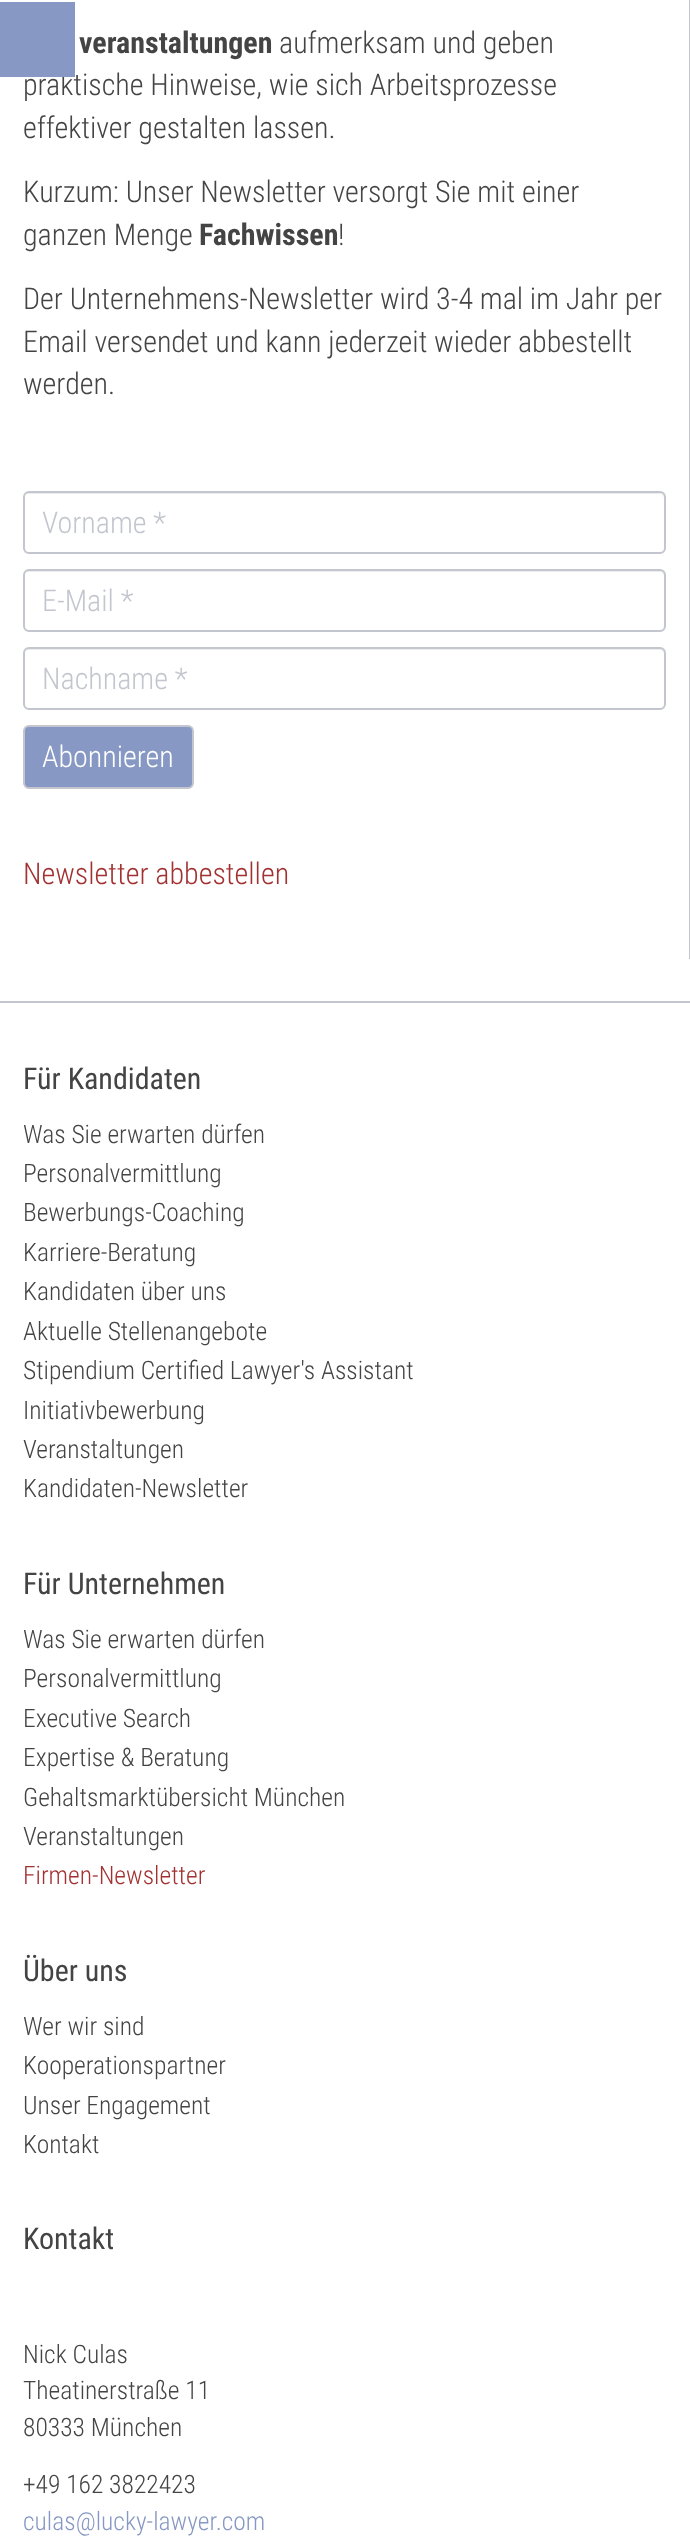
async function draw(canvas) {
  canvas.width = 690;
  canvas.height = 2548;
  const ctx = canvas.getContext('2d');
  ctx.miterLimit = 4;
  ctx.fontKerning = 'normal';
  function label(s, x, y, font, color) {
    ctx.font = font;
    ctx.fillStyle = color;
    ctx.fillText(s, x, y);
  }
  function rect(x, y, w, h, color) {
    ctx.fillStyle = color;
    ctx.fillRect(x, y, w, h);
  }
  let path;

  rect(0, 0, 690, 2548, '#fff');
  label('praktische Hinweise, wie sich Arbeitsprozesse', 23, 95, '300 30px Roboto Condensed', '#444');
  rect(0, 2, 75, 75, '#8698c3');
  rect(689, 0, 1, 959, '#c3c6ce');
  label('veranstaltungen', 79, 53, 'bold 30px Roboto Condensed', '#444');
  label('aufmerksam und geben', 279, 53, '300 30px Roboto Condensed', '#444');
  label('effektiver gestalten lassen.', 23, 138, '300 30px Roboto Condensed', '#444');
  label('Kurzum: Unser Newsletter versorgt Sie mit einer', 23, 202, '300 30px Roboto Condensed', '#444');
  label('ganzen Menge', 23, 245, '300 30px Roboto Condensed', '#444');
  label('Fachwissen', 199, 245, 'bold 30px Roboto Condensed', '#444');
  label('!', 338, 245, '300 30px Roboto Condensed', '#444');
  label('Der Unternehmens-Newsletter wird 3-4 mal im Jahr per', 23, 309, '300 30px Roboto Condensed', '#444');
  label('Email versendet und kann jederzeit wieder abbestellt', 23, 352, '300 30px Roboto Condensed', '#444');
  label('werden.', 23, 394, '300 30px Roboto Condensed', '#444');
  ctx.fillStyle = '#ececec';
  path = new Path2D('M28 494H660C662 494 664 496 664 498V550C665 549 665 548 665 547V497C665 494 663 492 660 492H29C26 492 24 494 24 497V498C24 496 26 494 28 494Z');
  ctx.fill(path);
  ctx.beginPath();
  ctx.roundRect(24, 492, 641, 61, 5);
  ctx.strokeStyle = '#c3c6ce';
  ctx.lineWidth = 2;
  ctx.stroke();
  label('Vorname *', 42, 533, '300 30px Roboto Condensed', '#c3c6ce');
  ctx.fillStyle = '#ececec';
  path = new Path2D('M28 572H660C662 572 664 574 664 576V628C665 627 665 626 665 625V575C665 572 663 570 660 570H29C26 570 24 572 24 575V576C24 574 26 572 28 572Z');
  ctx.fill(path);
  ctx.beginPath();
  ctx.roundRect(24, 570, 641, 61, 5);
  ctx.stroke();
  label('E-Mail *', 42, 611, '300 30px Roboto Condensed', '#c3c6ce');
  ctx.fillStyle = '#ececec';
  path = new Path2D('M28 650H660C662 650 664 652 664 654V706C665 705 665 704 665 703V653C665 650 663 648 660 648H29C26 648 24 650 24 653V654C24 652 26 650 28 650Z');
  ctx.fill(path);
  ctx.beginPath();
  ctx.roundRect(24, 648, 641, 61, 5);
  ctx.stroke();
  label('Nachname *', 42, 689, '300 30px Roboto Condensed', '#c3c6ce');
  ctx.fillStyle = '#8698c3';
  ctx.beginPath();
  ctx.roundRect(24, 726, 169, 62, 5);
  ctx.fill();
  ctx.stroke();
  label('Abonnieren', 42, 767, '300 30px Roboto Condensed', '#fff');
  label('Newsletter abbestellen', 23, 884, '300 30px Roboto Condensed', '#a23232');
  rect(0, 1001, 690, 2, '#c3c6ce');
  label('Für Kandidaten', 23, 1089, '30px Roboto Condensed', '#444');
  label('Was Sie erwarten dürfen', 23, 1143, '300 25.5px Roboto Condensed', '#444');
  label('Personalvermittlung', 23, 1182, '300 25.5px Roboto Condensed', '#444');
  label('Bewerbungs-Coaching', 23, 1221, '300 25.5px Roboto Condensed', '#444');
  label('Karriere-Beratung', 23, 1261, '300 25.5px Roboto Condensed', '#444');
  label('Kandidaten über uns', 23, 1300, '300 25.5px Roboto Condensed', '#444');
  label('Aktuelle Stellenangebote', 23, 1340, '300 25.5px Roboto Condensed', '#444');
  label('Stipendium Certified Lawyer\'s Assistant', 23, 1379, '300 25.5px Roboto Condensed', '#444');
  label('Initiativbewerbung', 23, 1419, '300 25.5px Roboto Condensed', '#444');
  label('Veranstaltungen', 23, 1458, '300 25.5px Roboto Condensed', '#444');
  label('Kandidaten-Newsletter', 23, 1497, '300 25.5px Roboto Condensed', '#444');
  label('Für Unternehmen', 23, 1594, '30px Roboto Condensed', '#444');
  label('Was Sie erwarten dürfen', 23, 1648, '300 25.5px Roboto Condensed', '#444');
  label('Personalvermittlung', 23, 1687, '300 25.5px Roboto Condensed', '#444');
  label('Executive Search', 23, 1727, '300 25.5px Roboto Condensed', '#444');
  label('Expertise & Beratung', 23, 1766, '300 25.5px Roboto Condensed', '#444');
  label('Gehaltsmarktübersicht München', 23, 1806, '300 25.5px Roboto Condensed', '#444');
  label('Veranstaltungen', 23, 1845, '300 25.5px Roboto Condensed', '#444');
  label('Firmen-Newsletter', 23, 1884, '300 25.5px Roboto Condensed', '#a23232');
  label('Über uns', 23, 1981, '30px Roboto Condensed', '#444');
  label('Wer wir sind', 23, 2035, '300 25.5px Roboto Condensed', '#444');
  label('Kooperationspartner', 23, 2074, '300 25.5px Roboto Condensed', '#444');
  label('Unser Engagement', 23, 2114, '300 25.5px Roboto Condensed', '#444');
  label('Kontakt', 23, 2153, '300 25.5px Roboto Condensed', '#444');
  label('Kontakt', 23, 2249, '30px Roboto Condensed', '#444');
  label('Nick Culas', 23, 2363, '300 25.5px Roboto Condensed', '#444');
  label('Theatinerstraße 11', 23, 2399, '300 25.5px Roboto Condensed', '#444');
  label('80333 München', 23, 2436, '300 25.5px Roboto Condensed', '#444');
  label('+49 162 3822423', 23, 2493, '300 25.5px Roboto Condensed', '#444');
  label('culas@lucky-lawyer.com', 23, 2530, '300 25.5px Roboto Condensed', '#8698c3');
}

draw(document.querySelector('canvas'));
